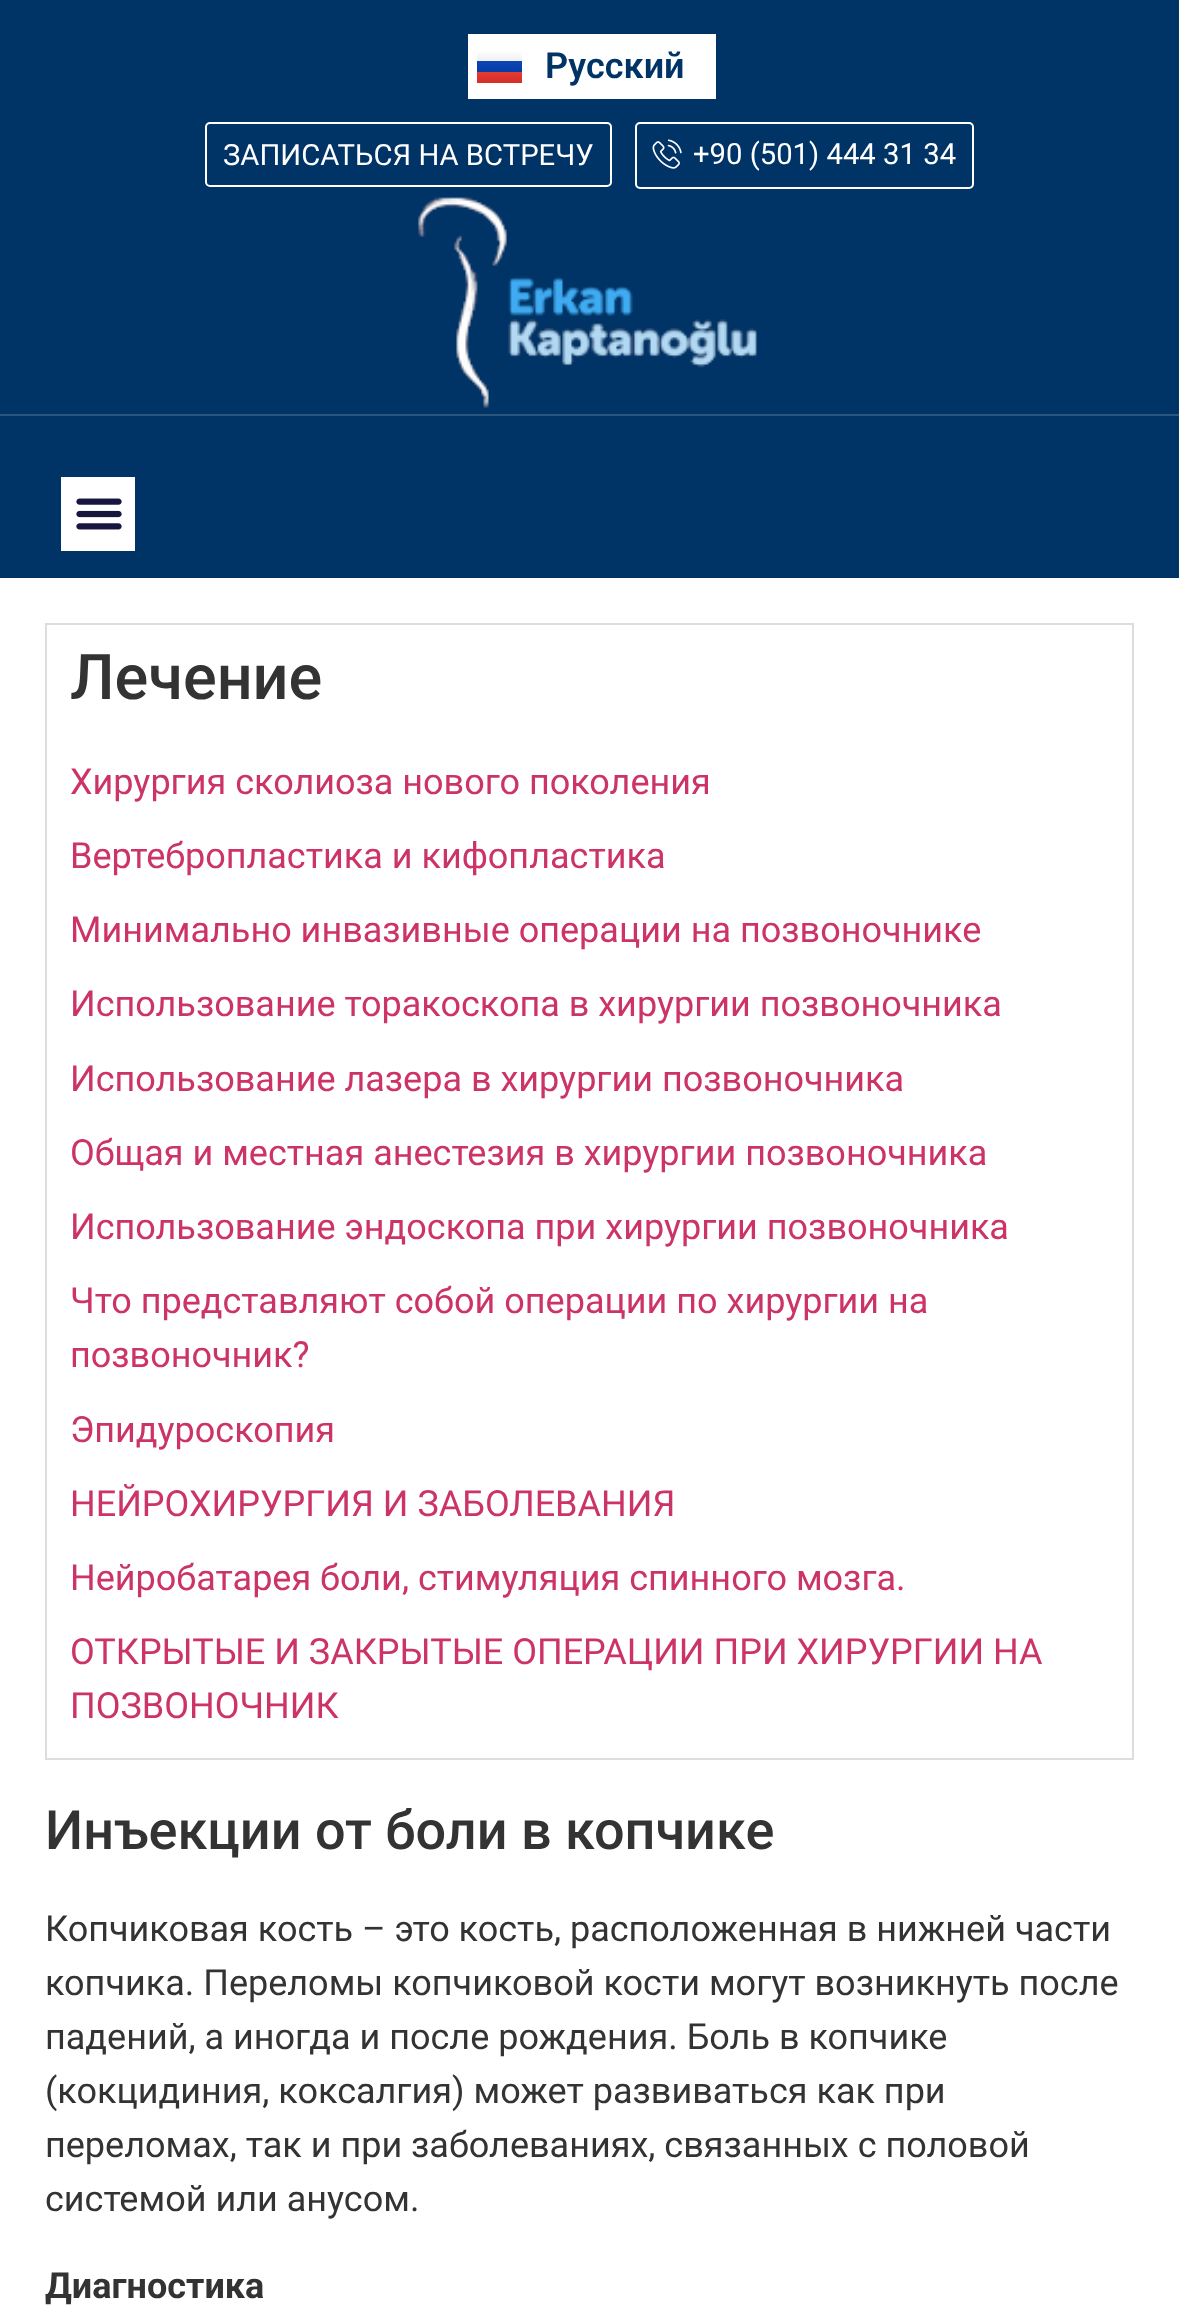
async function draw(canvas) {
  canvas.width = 1179;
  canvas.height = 2321;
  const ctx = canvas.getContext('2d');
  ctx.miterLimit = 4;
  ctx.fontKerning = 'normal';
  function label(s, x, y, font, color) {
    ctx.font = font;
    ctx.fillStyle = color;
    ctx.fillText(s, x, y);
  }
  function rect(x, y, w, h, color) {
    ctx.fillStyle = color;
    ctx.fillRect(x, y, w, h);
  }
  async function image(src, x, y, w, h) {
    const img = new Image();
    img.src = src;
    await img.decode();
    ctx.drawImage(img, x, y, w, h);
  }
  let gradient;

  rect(0, 0, 1179, 2321, '#fff');
  rect(0, 0, 1179, 578, '#036');
  rect(468, 34, 248, 65, '#fff');
  gradient = ctx.createLinearGradient(501, 50, 501, 61);
  gradient.addColorStop(0, '#fff');
  gradient.addColorStop(1, '#f0f0f0');
  ctx.fillStyle = gradient;
  ctx.fillRect(477, 52, 45, 9);
  gradient = ctx.createLinearGradient(501, 61, 501, 72);
  gradient.addColorStop(0, '#0c47b7');
  gradient.addColorStop(1, '#073da4');
  ctx.fillStyle = gradient;
  ctx.fillRect(477, 61, 45, 11);
  gradient = ctx.createLinearGradient(501, 72, 501, 83);
  gradient.addColorStop(0, '#e53b35');
  gradient.addColorStop(1, '#d32e28');
  ctx.fillStyle = gradient;
  ctx.fillRect(477, 72, 45, 11);
  label('Русский', 545, 78, '600 36px Roboto', '#036');
  ctx.beginPath();
  ctx.roundRect(206, 123, 405, 63, 4);
  ctx.strokeStyle = '#fff';
  ctx.lineWidth = 2;
  ctx.stroke();
  label('ЗАПИСАТЬСЯ НА ВСТРЕЧУ', 223, 165, '29.25px Roboto', '#fff');
  ctx.beginPath();
  ctx.roundRect(636, 123, 337, 65, 4);
  ctx.stroke();
  await image('assets/img1.png', 652, 139, 30, 30);
  label('+90 (501) 444 31 34', 693, 164, '29.25px Roboto', '#fff');
  rect(0, 414, 1179, 2, '#2b5680');
  await image('assets/img2.png', 418, 197, 339, 211);
  rect(61, 477, 74, 74, '#fff');
  await image('assets/img3.png', 76, 498, 46, 32);
  ctx.strokeStyle = '#ddd';
  ctx.strokeRect(46, 624, 1087, 1135);
  label('Лечение', 70, 699, '500 63px Roboto', '#333');
  label('Хирургия сколиоза нового поколения', 70, 794, '36px Roboto', '#c36');
  label('Вертебропластика и кифопластика', 70, 868, '36px Roboto', '#c36');
  label('Минимально инвазивные операции на позвоночнике', 70, 942, '36px Roboto', '#c36');
  label('Использование торакоскопа в хирургии позвоночника', 70, 1016, '36px Roboto', '#c36');
  label('Использование лазера в хирургии позвоночника', 70, 1091, '36px Roboto', '#c36');
  label('Общая и местная анестезия в хирургии позвоночника', 70, 1165, '36px Roboto', '#c36');
  label('Использование эндоскопа при хирургии позвоночника', 70, 1239, '36px Roboto', '#c36');
  label('Что представляют собой операции по хирургии на', 70, 1313, '36px Roboto', '#c36');
  label('позвоночник?', 70, 1367, '36px Roboto', '#c36');
  label('Эпидуроскопия', 70, 1442, '36px Roboto', '#c36');
  label('НЕЙРОХИРУРГИЯ И ЗАБОЛЕВАНИЯ', 70, 1516, '36px Roboto', '#c36');
  label('Нейробатарея боли, стимуляция спинного мозга.', 70, 1590, '36px Roboto', '#c36');
  label('ОТКРЫТЫЕ И ЗАКРЫТЫЕ ОПЕРАЦИИ ПРИ ХИРУРГИИ НА', 70, 1664, '36px Roboto', '#c36');
  label('ПОЗВОНОЧНИК', 70, 1718, '36px Roboto', '#c36');
  label('Инъекции от боли в копчике', 45, 1849, '500 54px Roboto', '#333');
  label('Копчиковая кость – это кость, расположенная в нижней части', 45, 1941, '36px Roboto', '#333');
  label('копчика. Переломы копчиковой кости могут возникнуть после', 45, 1995, '36px Roboto', '#333');
  label('падений, а иногда и после рождения. Боль в копчике', 45, 2049, '36px Roboto', '#333');
  label('(кокцидиния, коксалгия) может развиваться как при', 45, 2103, '36px Roboto', '#333');
  label('переломах, так и при заболеваниях, связанных с половой', 45, 2157, '36px Roboto', '#333');
  label('системой или анусом.', 45, 2211, '36px Roboto', '#333');
  label('Диагностика', 45, 2298, 'bold 36px Roboto', '#333');
}

draw(document.querySelector('canvas'));
